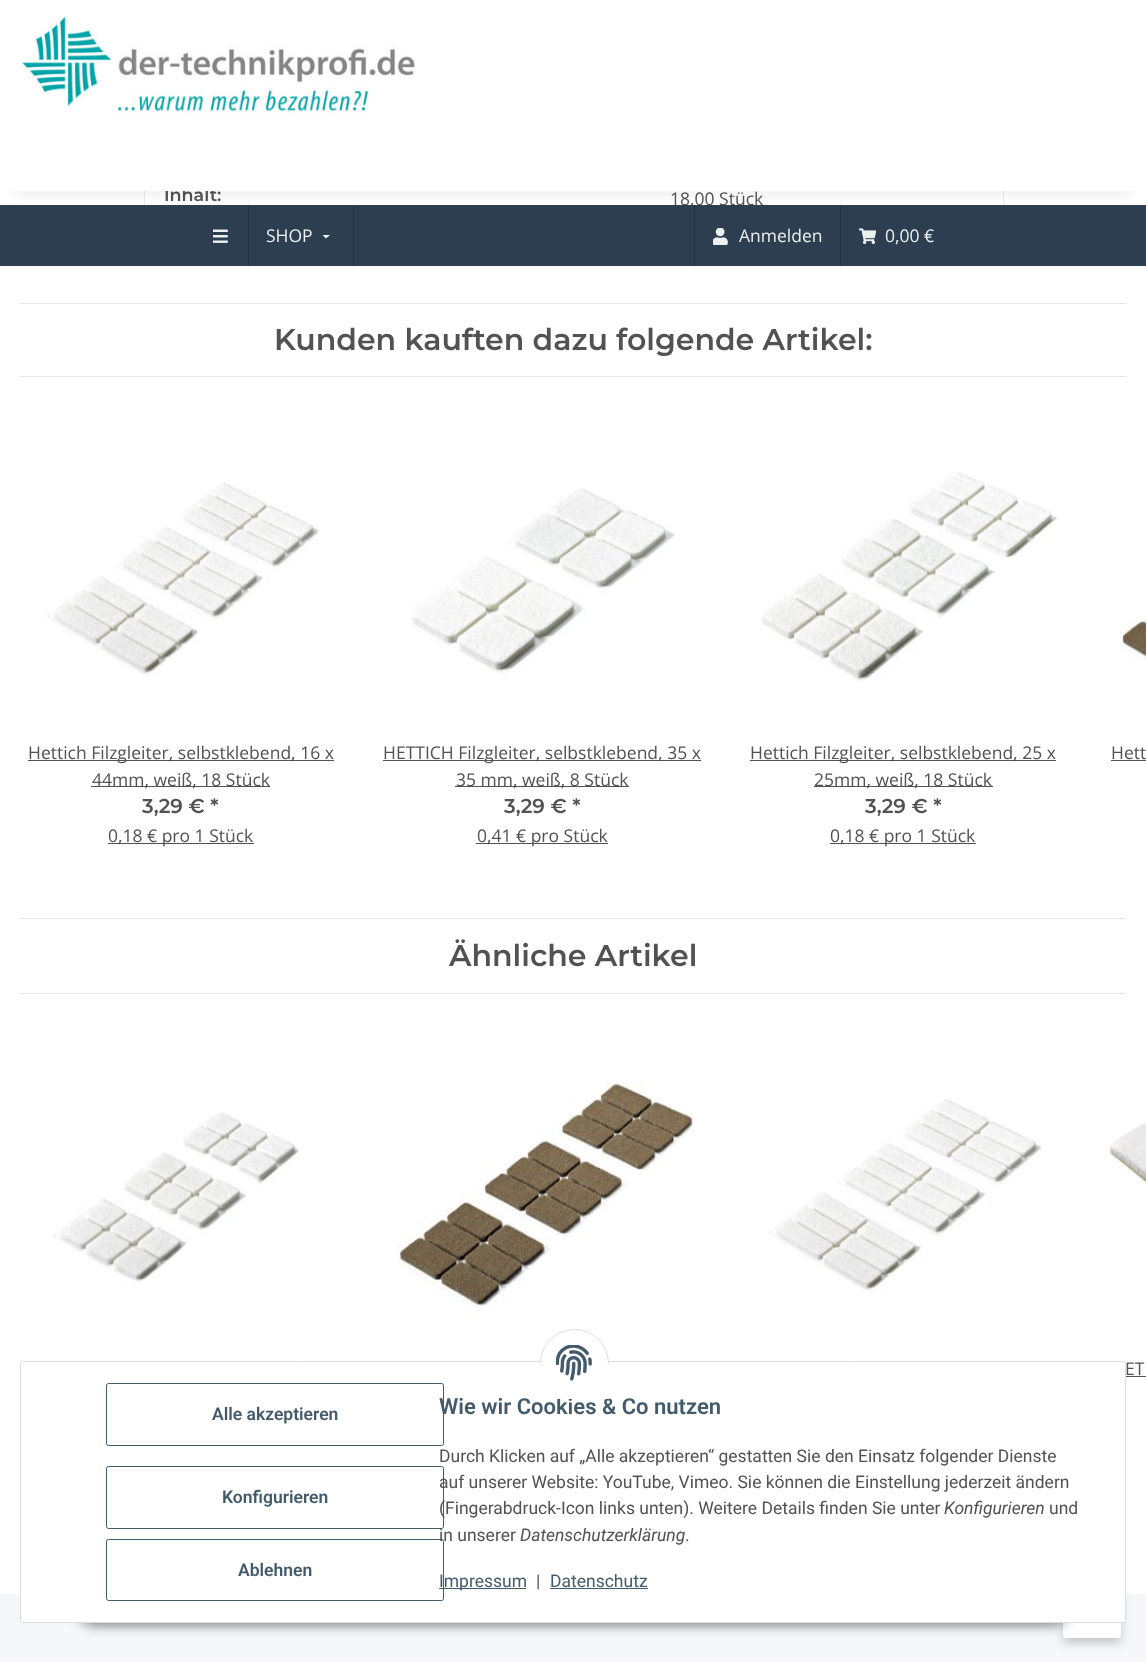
async function draw(canvas) {
  canvas.width = 1146;
  canvas.height = 1662;
  const ctx = canvas.getContext('2d');
  ctx.miterLimit = 4;
  ctx.fontKerning = 'normal';
  function label(s, x, y, font, color) {
    ctx.font = font;
    ctx.fillStyle = color;
    ctx.fillText(s, x, y);
  }
  function rect(x, y, w, h, color) {
    ctx.fillStyle = color;
    ctx.fillRect(x, y, w, h);
  }
  function roundedRect(x, y, w, h, r, color) {
    ctx.fillStyle = color;
    ctx.beginPath();
    ctx.roundRect(x, y, w, h, r);
    ctx.fill();
  }
  async function image(src, x, y, w, h) {
    const img = new Image();
    img.src = src;
    await img.decode();
    ctx.drawImage(img, x, y, w, h);
  }
  let path;

  rect(0, 0, 1146, 1662, '#f5f7fa');
  rect(0, 191, 1146, 1403, '#fff');
  rect(1003, 191, 1, 14, '#ebebeb');
  rect(144, 191, 1, 14, '#ebebeb');
  label('Inhalt:', 164, 201, '600 17.5px Montserrat', '#525252');
  label('18,00 Stück', 670, 205, '17.5px Open Sans', '#525252');
  rect(20, 303, 1106, 1, '#e6e6e6');
  rect(20, 376, 1106, 1, '#e6e6e6');
  label('Kunden kauften dazu folgende Artikel:', 274, 350, '600 30px Montserrat', '#525252');
  await image('assets/img1.png', 46, 482, 273, 194);
  rect(28, 760, 306, 1, '#525252');
  label('Hettich Filzgleiter, selbstklebend, 16 x', 28, 759, '17.5px Open Sans', '#525252');
  rect(91, 786, 179, 1, '#525252');
  label('44mm, weiß, 18 Stück', 92, 786, '17.5px Open Sans', '#525252');
  label('3,29 € *', 142, 813, '600 20px Montserrat', '#525252');
  rect(108, 843, 146, 1, '#525252');
  label('0,18 € pro 1 Stück', 108, 842, '17.5px Open Sans', '#525252');
  await image('assets/img2.png', 411, 488, 264, 187);
  rect(383, 760, 318, 1, '#525252');
  label('HETTICH Filzgleiter, selbstklebend, 35 x', 383, 759, '17.5px Open Sans', '#525252');
  rect(455, 786, 174, 1, '#525252');
  label('35 mm, weiß, 8 Stück', 456, 786, '17.5px Open Sans', '#525252');
  label('3,29 € *', 504, 813, '600 20px Montserrat', '#525252');
  rect(476, 843, 132, 1, '#525252');
  label('0,41 € pro Stück', 477, 842, '17.5px Open Sans', '#525252');
  await image('assets/img3.png', 761, 472, 297, 210);
  rect(750, 760, 306, 1, '#525252');
  label('Hettich Filzgleiter, selbstklebend, 25 x', 750, 759, '17.5px Open Sans', '#525252');
  rect(814, 786, 179, 1, '#525252');
  label('25mm, weiß, 18 Stück', 814, 786, '17.5px Open Sans', '#525252');
  label('3,29 € *', 865, 813, '600 20px Montserrat', '#525252');
  rect(830, 843, 146, 1, '#525252');
  label('0,18 € pro 1 Stück', 830, 842, '17.5px Open Sans', '#525252');
  await image('assets/img4.png', 1119, 614, 27, 46);
  label('Hett', 1111, 759, '17.5px Open Sans', '#525252');
  rect(1111, 760, 35, 1, '#525252');
  rect(20, 918, 1106, 1, '#e6e6e6');
  rect(20, 993, 1106, 1, '#e6e6e6');
  label('Ähnliche Artikel', 449, 966, '600 30px Montserrat', '#525252');
  await image('assets/img5.png', 53, 1112, 247, 171);
  await image('assets/img6.png', 397, 1081, 298, 234);
  await image('assets/img7.png', 769, 1099, 272, 193);
  await image('assets/img8.png', 1106, 1122, 40, 64);
  label('ET', 1125, 1375, '17.5px Open Sans', '#525252');
  rect(1126, 1376, 20, 1, '#525252');
  ctx.fillStyle = '#0000000f';
  ctx.filter = 'blur(5.5px)';
  ctx.beginPath();
  ctx.rect(15, 35, 1116, 161);
  ctx.fill();
  ctx.filter = 'none';
  rect(0, 0, 1146, 191, '#fff');
  await image('assets/img9.png', 20, 15, 395, 99);
  rect(0, 205, 1146, 61, '#2c3e50');
  rect(248, 205, 1, 61, '#233140');
  await image('assets/img10.png', 213, 229, 15, 14);
  rect(353, 205, 1, 61, '#233140');
  label('SHOP', 266, 242, '17.5px Open Sans', '#ecf0f1');
  path = new Path2D('M322.5 235H330L326 238.5Z');
  ctx.fill(path);
  rect(694, 205, 1, 61, '#233140');
  await image('assets/img11.png', 713, 228, 15, 17);
  label('Anmelden', 739, 242, '17.5px Open Sans', '#ecf0f1');
  rect(840, 205, 1, 61, '#233140');
  await image('assets/img12.png', 859, 228, 17, 16);
  label('0,00 €', 885, 242, '17.5px Open Sans', '#ecf0f1');
  ctx.fillStyle = '#00000033';
  ctx.filter = 'blur(5px)';
  ctx.beginPath();
  ctx.roundRect(1063, 1588, 58, 55, 2.5);
  ctx.fill();
  ctx.filter = 'none';
  roundedRect(1063, 1583, 58, 55, 2.5, '#fff');
  ctx.fillStyle = '#00000073';
  ctx.filter = 'blur(6px)';
  ctx.beginPath();
  ctx.roundRect(76, 1586, 994, 40, 20);
  ctx.fill();
  ctx.filter = 'none';
  ctx.fillStyle = '#fff';
  ctx.beginPath();
  ctx.roundRect(20.5, 1361.5, 1105, 261, 2);
  ctx.fill();
  ctx.strokeStyle = '#ddd';
  ctx.stroke();
  ctx.beginPath();
  ctx.roundRect(106.5, 1383.5, 337, 62, 2);
  ctx.strokeStyle = '#435a6b';
  ctx.stroke();
  label('Wie wir Cookies & Co nutzen', 439, 1414, '600 22px Roboto', '#435a6b');
  ctx.fillStyle = '#fff';
  ctx.beginPath();
  ctx.arc(574.5, 1363.5, 34, 0, 2 * Math.PI);
  ctx.fill();
  ctx.strokeStyle = '#ddd';
  ctx.stroke();
  rect(540, 1364, 69, 35, '#fff');
  await image('assets/img13.png', 556, 1345, 36, 36);
  label('Alle akzeptieren', 212, 1420, '600 17.5px Roboto', '#435a6b');
  ctx.beginPath();
  ctx.roundRect(106.5, 1466.5, 337, 62, 2);
  ctx.strokeStyle = '#435a6b';
  ctx.stroke();
  label('Konfigurieren', 222, 1503, '600 17.5px Roboto', '#435a6b');
  ctx.beginPath();
  ctx.roundRect(106.5, 1539.5, 337, 61, 2);
  ctx.stroke();
  label('Ablehnen', 238, 1576, '600 17.5px Roboto', '#435a6b');
  label('Durch Klicken auf „Alle akzeptieren“ gestatten Sie den Einsatz folgender Dienste', 439, 1462, '17.5px Roboto', '#525252');
  label('auf unserer Website: YouTube, Vimeo. Sie können die Einstellung jederzeit ändern', 439, 1488, '17.5px Roboto', '#525252');
  label('(Fingerabdruck-Icon links unten). Weitere Details finden Sie unter', 439, 1514, '17.5px Roboto', '#525252');
  label('Konfigurieren', 944, 1514, 'italic 17.5px Roboto', '#525252');
  label('und', 1049, 1514, '17.5px Roboto', '#525252');
  label('in unserer', 439, 1541, '17.5px Roboto', '#525252');
  label('Datenschutzerklärung', 520, 1541, 'italic 17.5px Roboto', '#525252');
  label('.', 685, 1541, '17.5px Roboto', '#525252');
  rect(439, 1588, 87, 1, '#435a6b');
  label('Impressum', 439, 1587, '17.5px Roboto', '#435a6b');
  label('|', 536, 1587, '17.5px Roboto', '#525252');
  label('Datenschutz', 550, 1587, '17.5px Roboto', '#435a6b');
  rect(550, 1588, 98, 1, '#435a6b');
}

draw(document.querySelector('canvas'));
